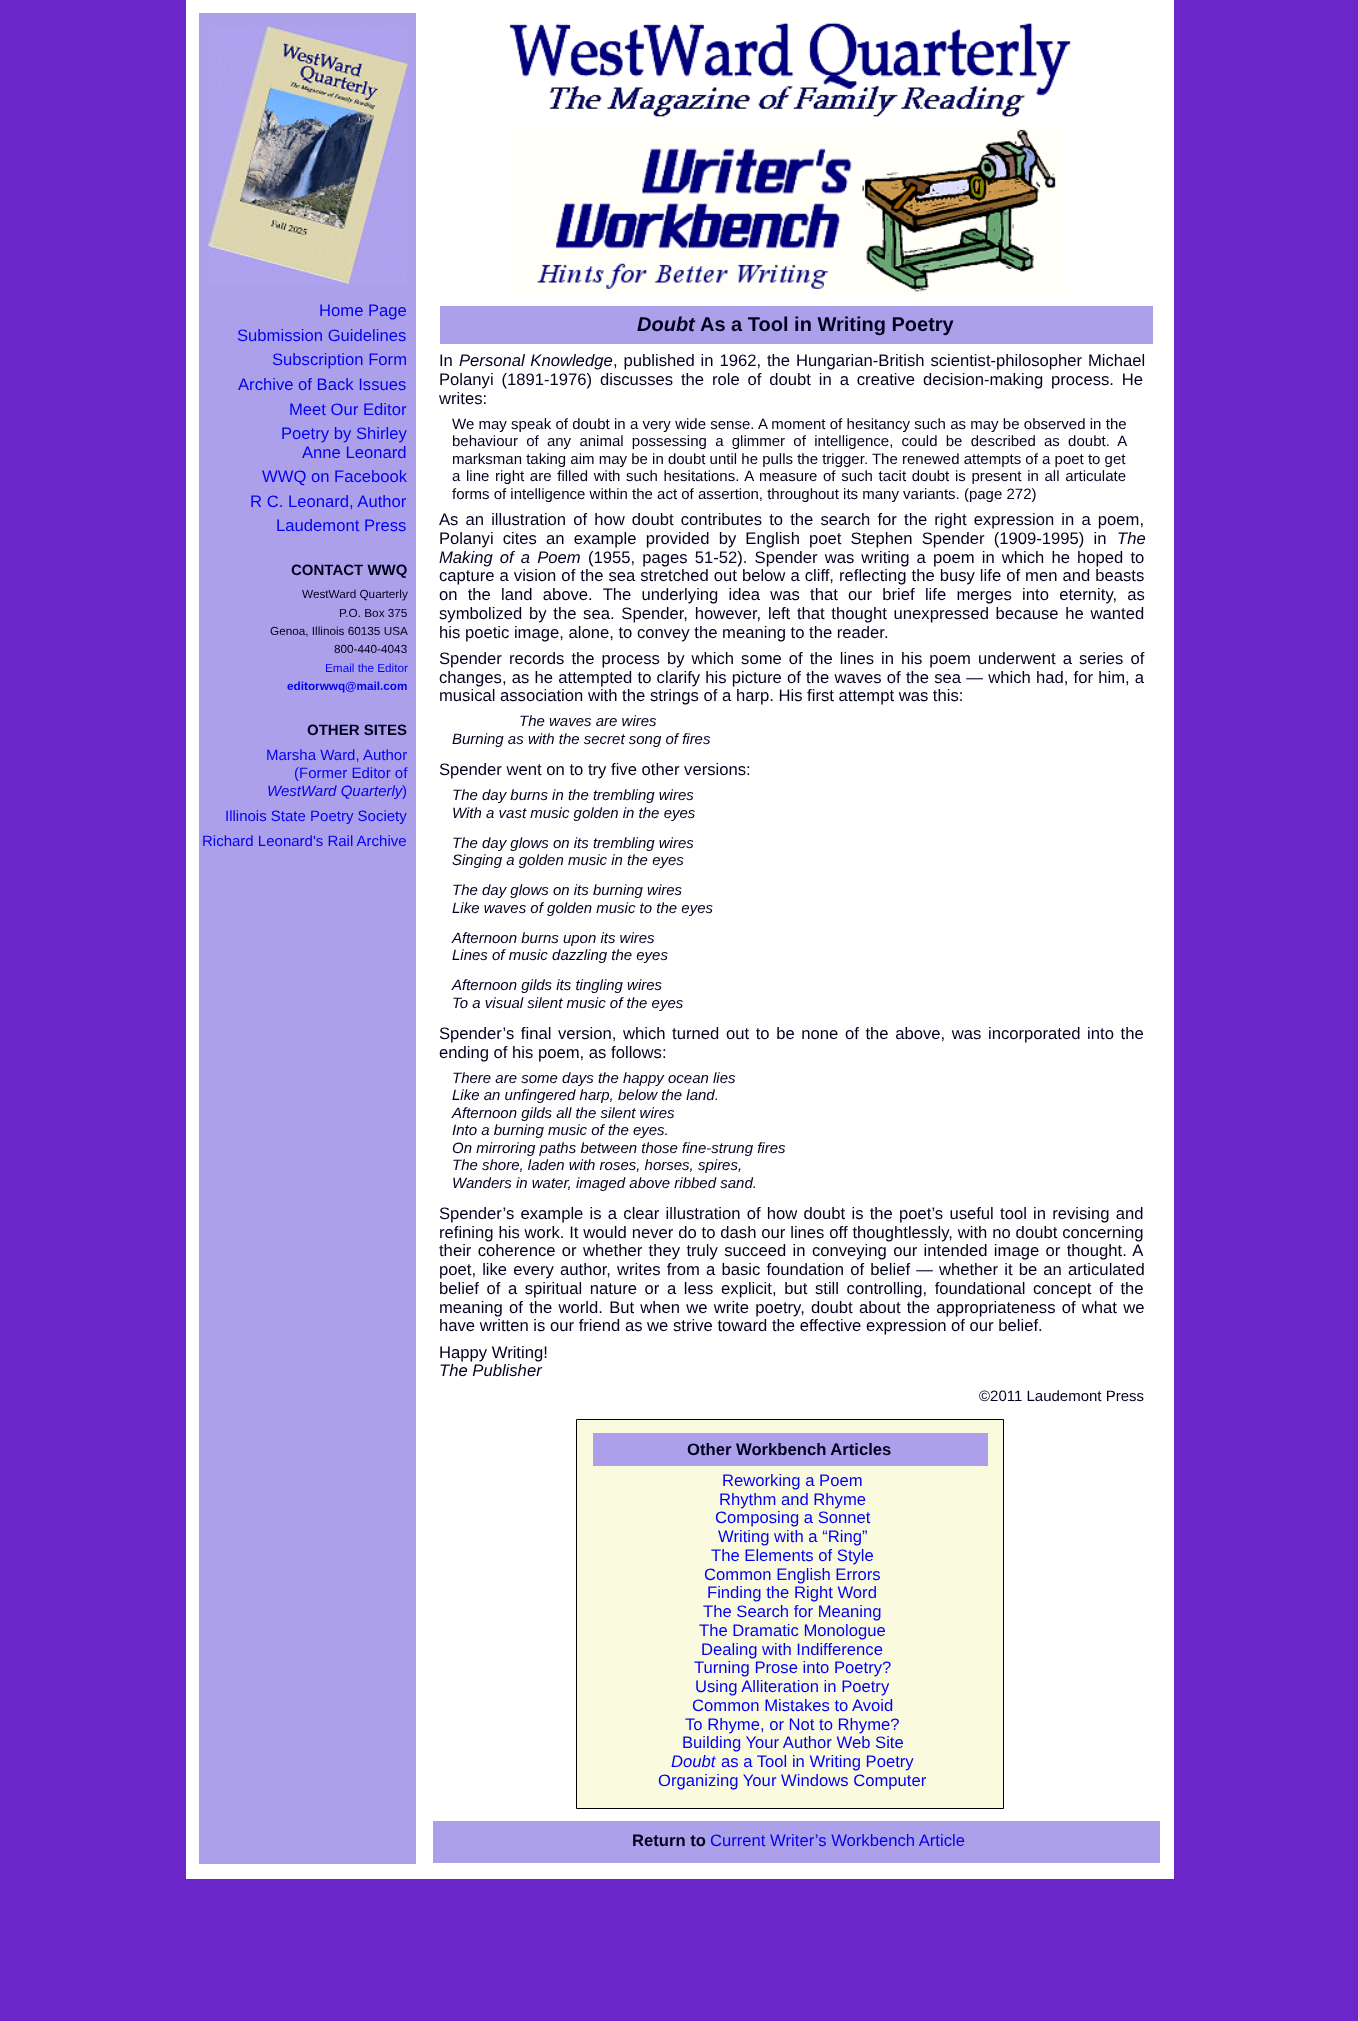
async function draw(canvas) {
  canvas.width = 1358;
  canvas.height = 2021;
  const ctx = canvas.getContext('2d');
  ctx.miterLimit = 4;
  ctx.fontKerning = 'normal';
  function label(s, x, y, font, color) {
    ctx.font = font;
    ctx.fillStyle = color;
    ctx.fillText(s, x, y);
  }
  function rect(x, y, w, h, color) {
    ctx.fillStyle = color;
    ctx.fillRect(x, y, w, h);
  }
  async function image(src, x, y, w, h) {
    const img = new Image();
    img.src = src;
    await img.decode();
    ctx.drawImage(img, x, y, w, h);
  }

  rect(0, 0, 1358, 2021, '#6b26ca');
  rect(186, 0, 988, 1879, '#fff');
  rect(199, 13, 217, 1851, '#aca0ea');
  await image('assets/img1.png', 207, 26, 201, 258);
  label('Home Page', 319, 316, '16.65px Liberation Sans', '#0000f2');
  label('Submission Guidelines', 237, 341, '16.65px Liberation Sans', '#0000f2');
  label('Subscription Form', 272, 365, '16.65px Liberation Sans', '#0000f2');
  label('Archive of Back Issues', 238, 390, '16.65px Liberation Sans', '#0000f2');
  label('Meet Our Editor', 289, 415, '16.65px Liberation Sans', '#0000f2');
  label('Poetry by Shirley', 281, 439, '16.65px Liberation Sans', '#0000f2');
  label('Anne Leonard', 302, 458, '16.65px Liberation Sans', '#0000f2');
  label('WWQ on Facebook', 262, 482, '16.65px Liberation Sans', '#0000f2');
  label('R C. Leonard, Author', 250, 507, '16.65px Liberation Sans', '#0000f2');
  label('Laudemont Press', 276, 531, '16.65px Liberation Sans', '#0000f2');
  label('CONTACT WWQ', 291, 575, 'bold 15px Liberation Sans', '#000020');
  label('WestWard Quarterly', 302, 598, '11.75px Liberation Sans', '#000020');
  label('P.O. Box 375', 339, 617, '11.75px Liberation Sans', '#000020');
  label('Genoa, Illinois 60135 USA', 270, 635, '11.75px Liberation Sans', '#000020');
  label('800-440-4043', 334, 653, '11.75px Liberation Sans', '#000020');
  label('Email the Editor', 325, 672, '11.75px Liberation Sans', '#0000f2');
  label('editorwwq@mail.com', 287, 690, 'bold 11.75px Liberation Sans', '#0000f2');
  label('OTHER SITES', 307, 735, 'bold 15px Liberation Sans', '#000020');
  label('Marsha Ward, Author', 266, 760, '15px Liberation Sans', '#0000f2');
  label('(Former Editor of', 294, 778, '15px Liberation Sans', '#0000f2');
  label('WestWard Quarterly', 267, 796, 'italic 15px Liberation Sans', '#0000f2');
  label(')', 402, 796, '15px Liberation Sans', '#0000f2');
  label('Illinois State Poetry Society', 225, 821, '15px Liberation Sans', '#0000f2');
  label('Richard Leonard\'s Rail Archive', 202, 846, '15px Liberation Sans', '#0000f2');
  await image('assets/img2.png', 509, 22, 563, 95);
  await image('assets/img3.png', 514, 126, 551, 168);
  rect(440, 306, 713, 38, '#aca0ea');
  label('Doubt', 637, 331, 'italic bold 20px Liberation Sans', '#000020');
  label('As a Tool in Writing Poetry', 700, 331, 'bold 20px Liberation Sans', '#000020');
  label('In', 439, 366, '16.65px Liberation Sans', '#000020');
  ctx.wordSpacing = '1px';
  label('Personal Knowledge', 459, 366, 'italic 16.65px Liberation Sans', '#000020');
  ctx.wordSpacing = '1.25px';
  label(', published in 1962, the Hungarian-British scientist-philosopher Michael', 613, 366, '16.65px Liberation Sans', '#000020');
  ctx.wordSpacing = '3.25px';
  label('Polanyi (1891-1976) discusses the role of doubt in a creative decision-making process. He', 439, 385, '16.65px Liberation Sans', '#000020');
  ctx.wordSpacing = '0px';
  label('writes:', 439, 404, '16.65px Liberation Sans', '#000020');
  ctx.wordSpacing = '0.1px';
  label('We may speak of doubt in a very wide sense. A moment of hesitancy such as may be observed in the', 452, 429, '15px Liberation Sans', '#000020');
  ctx.wordSpacing = '4.1px';
  label('behaviour of any animal possessing a glimmer of intelligence, could be described as doubt. A', 452, 446, '15px Liberation Sans', '#000020');
  ctx.wordSpacing = '0px';
  label('marksman taking aim may be in doubt until he pulls the trigger. The renewed attempts of a poet to get', 452, 464, '15px Liberation Sans', '#000020');
  ctx.wordSpacing = '1.5px';
  label('a line right are filled with such hesitations. A measure of such tacit doubt is present in all articulate', 452, 481, '15px Liberation Sans', '#000020');
  ctx.wordSpacing = '0px';
  label('forms of intelligence within the act of assertion, throughout its many variants. (page 272)', 452, 499, '15px Liberation Sans', '#000020');
  ctx.wordSpacing = '2.5px';
  label('As an illustration of how doubt contributes to the search for the right expression in a poem,', 439, 525, '16.65px Liberation Sans', '#000020');
  ctx.wordSpacing = '4.5px';
  label('Polanyi cites an example provided by English poet Stephen Spender (1909-1995) in', 439, 544, '16.65px Liberation Sans', '#000020');
  ctx.wordSpacing = '0px';
  label('The', 1117, 544, 'italic 16.65px Liberation Sans', '#000020');
  ctx.wordSpacing = '2.5px';
  label('Making of a Poem', 439, 563, 'italic 16.65px Liberation Sans', '#000020');
  label('(1955, pages 51-52). Spender was writing a poem in which he hoped to', 588, 563, '16.65px Liberation Sans', '#000020');
  ctx.wordSpacing = '0.4px';
  label('capture a vision of the sea stretched out below a cliff, reflecting the busy life of men and beasts', 439, 581, '16.65px Liberation Sans', '#000020');
  ctx.wordSpacing = '5.6px';
  label('on the land above. The underlying idea was that our brief life merges into eternity, as', 439, 600, '16.65px Liberation Sans', '#000020');
  ctx.wordSpacing = '2.1px';
  label('symbolized by the sea. Spender, however, left that thought unexpressed because he wanted', 439, 619, '16.65px Liberation Sans', '#000020');
  ctx.wordSpacing = '0px';
  label('his poetic image, alone, to convey the meaning to the reader.', 439, 638, '16.65px Liberation Sans', '#000020');
  ctx.wordSpacing = '2.4px';
  label('Spender records the process by which some of the lines in his poem underwent a series of', 439, 664, '16.65px Liberation Sans', '#000020');
  ctx.wordSpacing = '0.6px';
  label('changes, as he attempted to clarify his picture of the waves of the sea — which had, for him, a', 439, 683, '16.65px Liberation Sans', '#000020');
  ctx.wordSpacing = '0px';
  label('musical association with the strings of a harp. His first attempt was this:', 439, 701, '16.65px Liberation Sans', '#000020');
  label('The waves are wires', 519, 726, 'italic 15px Liberation Sans', '#000020');
  label('Burning as with the secret song of fires', 452, 744, 'italic 15px Liberation Sans', '#000020');
  label('Spender went on to try five other versions:', 439, 775, '16.65px Liberation Sans', '#000020');
  label('The day burns in the trembling wires', 452, 800, 'italic 15px Liberation Sans', '#000020');
  label('With a vast music golden in the eyes', 452, 818, 'italic 15px Liberation Sans', '#000020');
  label('The day glows on its trembling wires', 452, 848, 'italic 15px Liberation Sans', '#000020');
  label('Singing a golden music in the eyes', 452, 865, 'italic 15px Liberation Sans', '#000020');
  label('The day glows on its burning wires', 452, 895, 'italic 15px Liberation Sans', '#000020');
  label('Like waves of golden music to the eyes', 452, 913, 'italic 15px Liberation Sans', '#000020');
  label('Afternoon burns upon its wires', 452, 943, 'italic 15px Liberation Sans', '#000020');
  label('Lines of music dazzling the eyes', 452, 960, 'italic 15px Liberation Sans', '#000020');
  label('Afternoon gilds its tingling wires', 452, 990, 'italic 15px Liberation Sans', '#000020');
  label('To a visual silent music of the eyes', 452, 1008, 'italic 15px Liberation Sans', '#000020');
  ctx.wordSpacing = '2px';
  label('Spender’s final version, which turned out to be none of the above, was incorporated into the', 439, 1039, '16.65px Liberation Sans', '#000020');
  ctx.wordSpacing = '0px';
  label('ending of his poem, as follows:', 439, 1058, '16.65px Liberation Sans', '#000020');
  label('There are some days the happy ocean lies', 452, 1083, 'italic 15px Liberation Sans', '#000020');
  label('Like an unfingered harp, below the land.', 452, 1100, 'italic 15px Liberation Sans', '#000020');
  label('Afternoon gilds all the silent wires', 452, 1118, 'italic 15px Liberation Sans', '#000020');
  label('Into a burning music of the eyes.', 452, 1135, 'italic 15px Liberation Sans', '#000020');
  label('On mirroring paths between those fine-strung fires', 452, 1153, 'italic 15px Liberation Sans', '#000020');
  label('The shore, laden with roses, horses, spires,', 452, 1170, 'italic 15px Liberation Sans', '#000020');
  label('Wanders in water, imaged above ribbed sand.', 452, 1188, 'italic 15px Liberation Sans', '#000020');
  ctx.wordSpacing = '1.6px';
  label('Spender’s example is a clear illustration of how doubt is the poet’s useful tool in revising and', 439, 1219, '16.65px Liberation Sans', '#000020');
  ctx.wordSpacing = '0.25px';
  label('refining his work. It would never do to dash our lines off thoughtlessly, with no doubt concerning', 439, 1238, '16.65px Liberation Sans', '#000020');
  ctx.wordSpacing = '1.75px';
  label('their coherence or whether they truly succeed in conveying our intended image or thought. A', 439, 1256, '16.65px Liberation Sans', '#000020');
  ctx.wordSpacing = '1.5px';
  label('poet, like every author, writes from a basic foundation of belief — whether it be an articulated', 439, 1275, '16.65px Liberation Sans', '#000020');
  ctx.wordSpacing = '3px';
  label('belief of a spiritual nature or a less explicit, but still controlling, foundational concept of the', 439, 1294, '16.65px Liberation Sans', '#000020');
  ctx.wordSpacing = '1.6px';
  label('meaning of the world. But when we write poetry, doubt about the appropriateness of what we', 439, 1313, '16.65px Liberation Sans', '#000020');
  ctx.wordSpacing = '0px';
  label('have written is our friend as we strive toward the effective expression of our belief.', 439, 1331, '16.65px Liberation Sans', '#000020');
  label('Happy Writing!', 439, 1358, '16.65px Liberation Sans', '#000020');
  label('The Publisher', 439, 1376, 'italic 16.65px Liberation Sans', '#000020');
  label('©2011 Laudemont Press', 979, 1401, '15px Liberation Sans', '#000020');
  ctx.fillStyle = '#fafade';
  ctx.beginPath();
  ctx.rect(576.5, 1419.5, 427, 389);
  ctx.fill();
  ctx.strokeStyle = '#000';
  ctx.stroke();
  rect(593, 1433, 395, 33, '#aca0ea');
  label('Other Workbench Articles', 687, 1455, 'bold 16.65px Liberation Sans', '#000020');
  label('Reworking a Poem', 722, 1486, '16.65px Liberation Sans', '#0000f2');
  label('Rhythm and Rhyme', 719, 1505, '16.65px Liberation Sans', '#0000f2');
  label('Composing a Sonnet', 715, 1523, '16.65px Liberation Sans', '#0000f2');
  label('Writing with a “Ring”', 718, 1542, '16.65px Liberation Sans', '#0000f2');
  label('The Elements of Style', 711, 1561, '16.65px Liberation Sans', '#0000f2');
  label('Common English Errors', 704, 1580, '16.65px Liberation Sans', '#0000f2');
  label('Finding the Right Word', 707, 1598, '16.65px Liberation Sans', '#0000f2');
  label('The Search for Meaning', 703, 1617, '16.65px Liberation Sans', '#0000f2');
  label('The Dramatic Monologue', 699, 1636, '16.65px Liberation Sans', '#0000f2');
  label('Dealing with Indifference', 701, 1655, '16.65px Liberation Sans', '#0000f2');
  label('Turning Prose into Poetry?', 694, 1673, '16.65px Liberation Sans', '#0000f2');
  label('Using Alliteration in Poetry', 695, 1692, '16.65px Liberation Sans', '#0000f2');
  label('Common Mistakes to Avoid', 692, 1711, '16.65px Liberation Sans', '#0000f2');
  label('To Rhyme, or Not to Rhyme?', 685, 1730, '16.65px Liberation Sans', '#0000f2');
  label('Building Your Author Web Site', 682, 1748, '16.65px Liberation Sans', '#0000f2');
  label('Doubt', 671, 1767, 'italic 16.65px Liberation Sans', '#0000f2');
  label('as a Tool in Writing Poetry', 721, 1767, '16.65px Liberation Sans', '#0000f2');
  label('Organizing Your Windows Computer', 658, 1786, '16.65px Liberation Sans', '#0000f2');
  rect(433, 1821, 727, 42, '#aca0ea');
  label('Return to', 632, 1846, 'bold 16.65px Liberation Sans', '#000020');
  label('Current Writer’s Workbench Article', 710, 1846, '16.65px Liberation Sans', '#0000f2');
}

draw(document.querySelector('canvas'));
